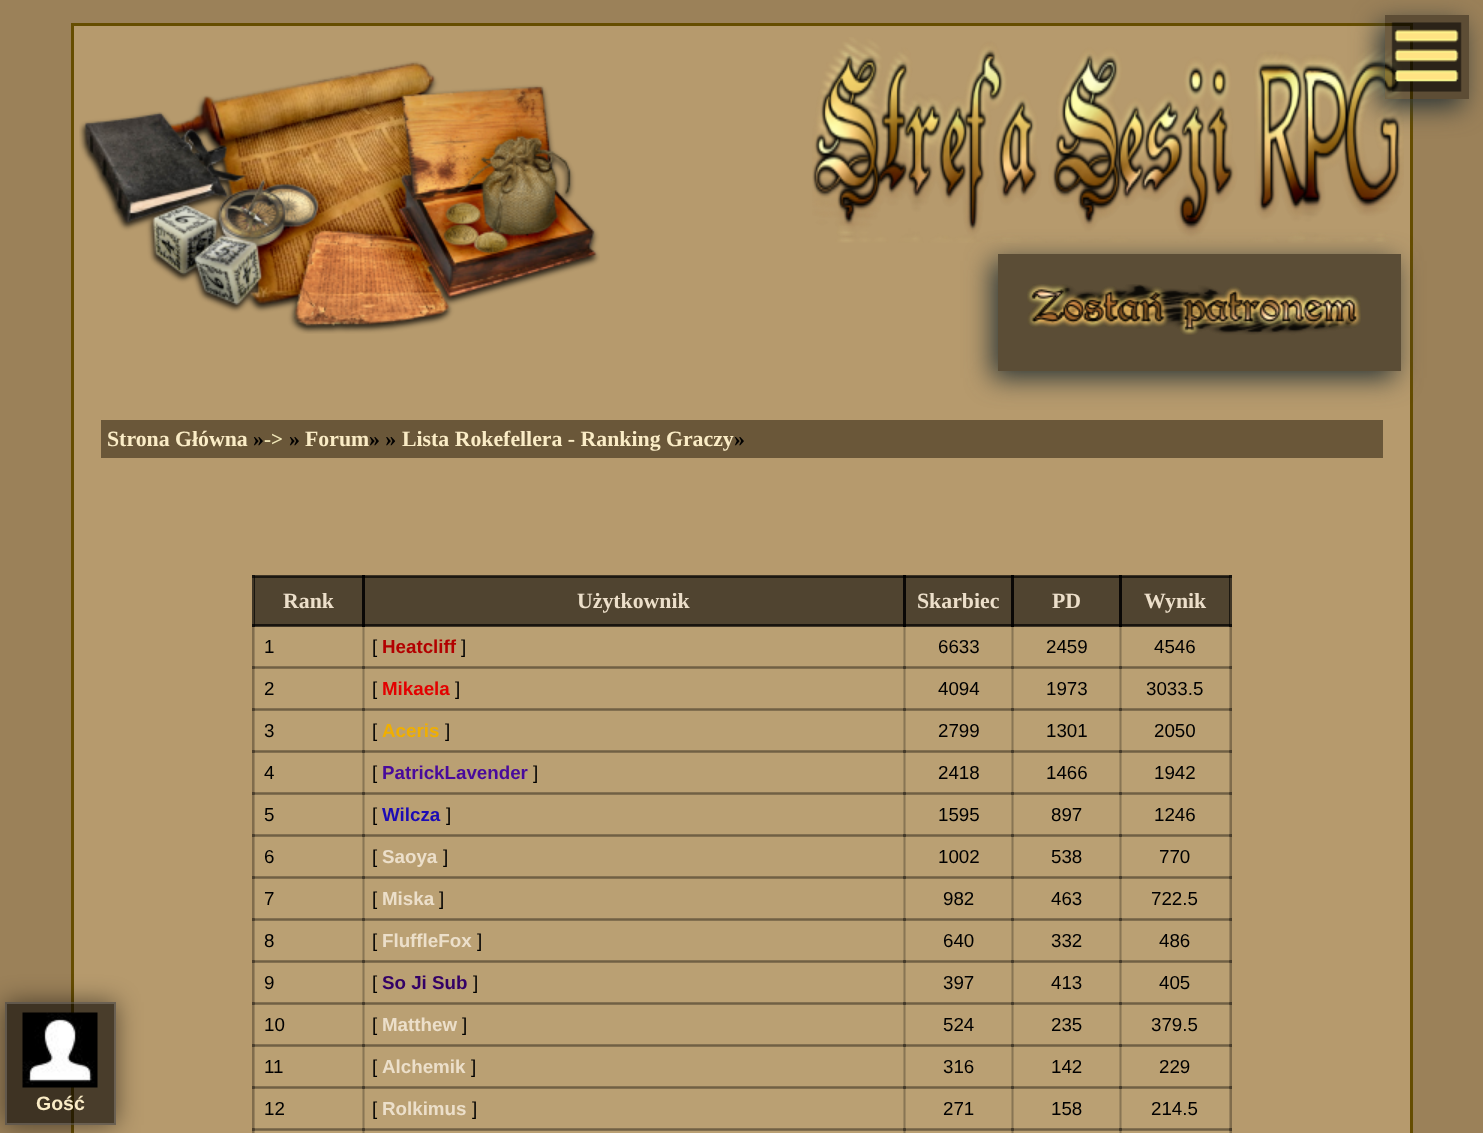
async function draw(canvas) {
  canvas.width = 1483;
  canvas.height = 1133;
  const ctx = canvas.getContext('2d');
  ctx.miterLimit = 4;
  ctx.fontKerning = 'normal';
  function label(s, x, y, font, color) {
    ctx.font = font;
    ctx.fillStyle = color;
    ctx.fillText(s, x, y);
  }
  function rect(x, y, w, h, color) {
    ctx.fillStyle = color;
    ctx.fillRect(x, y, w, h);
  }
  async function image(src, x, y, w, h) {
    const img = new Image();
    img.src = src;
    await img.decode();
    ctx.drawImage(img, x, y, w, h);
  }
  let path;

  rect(0, 0, 1483, 1133, '#9b8159');
  rect(74, 26, 1336, 1107, '#b69a6d');
  rect(252, 575, 2, 52, '#403626');
  rect(252, 575, 870, 1, '#403626');
  rect(252, 575, 3, 3, '#16130d');
  rect(362, 575, 3, 1, '#030202');
  rect(903, 575, 3, 1, '#030202');
  rect(1011, 575, 3, 1, '#030202');
  rect(1230, 575, 2, 52, '#403626');
  rect(1119, 575, 113, 1, '#403626');
  rect(1119, 575, 3, 1, '#030202');
  rect(1229, 575, 3, 3, '#16130d');
  rect(252, 624, 2, 509, '#957e59');
  rect(252, 624, 3, 3, '#120f0b');
  rect(1230, 624, 2, 509, '#957e59');
  rect(1229, 624, 3, 3, '#120f0b');
  rect(252, 666, 3, 3, '#64543c');
  rect(1229, 666, 3, 3, '#64543c');
  rect(252, 708, 3, 3, '#64543c');
  rect(1229, 708, 3, 3, '#64543c');
  rect(252, 750, 3, 3, '#64543c');
  rect(1229, 750, 3, 3, '#64543c');
  rect(252, 792, 3, 3, '#64543c');
  rect(1229, 792, 3, 3, '#64543c');
  rect(252, 834, 3, 3, '#64543c');
  rect(1229, 834, 3, 3, '#64543c');
  rect(252, 876, 3, 3, '#64543c');
  rect(1229, 876, 3, 3, '#64543c');
  rect(252, 918, 3, 3, '#64543c');
  rect(1229, 918, 3, 3, '#64543c');
  rect(252, 960, 3, 3, '#64543c');
  rect(1229, 960, 3, 3, '#64543c');
  rect(252, 1002, 3, 3, '#64543c');
  rect(1229, 1002, 3, 3, '#64543c');
  rect(252, 1044, 3, 3, '#64543c');
  rect(1229, 1044, 3, 3, '#64543c');
  rect(252, 1086, 3, 3, '#64543c');
  rect(1229, 1086, 3, 3, '#64543c');
  rect(252, 1128, 3, 3, '#64543c');
  rect(1229, 1128, 3, 3, '#64543c');
  ctx.strokeStyle = '#664d00';
  ctx.lineWidth = 3;
  ctx.strokeRect(72.5, 24.5, 1339, 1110);
  rect(101, 420, 1282, 38, '#6a5739');
  label('Strona Główna', 107, 446, 'bold 21.8px Liberation Serif', '#faecc6');
  label('»', 253, 446, 'bold 21.8px Liberation Serif', '#000');
  label('->', 264, 446, 'bold 21px Liberation Serif', '#f1e8b9');
  label('»', 289, 446, 'bold 21.8px Liberation Serif', '#000');
  label('Forum', 305, 446, 'bold 21.8px Liberation Serif', '#faecc6');
  label('» »', 369, 446, 'bold 21.8px Liberation Serif', '#000');
  label('Lista Rokefellera - Ranking Graczy', 402, 446, 'bold 21.8px Liberation Serif', '#faecc6');
  label('»', 734, 446, 'bold 21.8px Liberation Serif', '#000');
  await image('assets/img4.png', 812, 37, 592, 206);
  ctx.save();
  path = new Path2D('M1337 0H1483V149H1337ZM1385 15H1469V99H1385Z');
  ctx.clip(path, 'evenodd');
  ctx.fillStyle = '#2b3536';
  ctx.filter = 'blur(13.5px)';
  ctx.beginPath();
  ctx.rect(1379, 23, 84, 84);
  ctx.fill();
  ctx.filter = 'none';
  ctx.restore();
  rect(1385, 15, 84, 84, '#00000066');
  await image('assets/img1.png', 1391, 22, 71, 70);
  await image('assets/img2.png', 1391, 22, 71, 70);
  await image('assets/img3.png', 79, 61, 521, 273);
  ctx.save();
  path = new Path2D('M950 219H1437V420H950ZM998 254H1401V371H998Z');
  ctx.clip(path, 'evenodd');
  ctx.fillStyle = '#2b3536';
  ctx.filter = 'blur(13.5px)';
  ctx.beginPath();
  ctx.rect(992, 261, 403, 117);
  ctx.fill();
  ctx.filter = 'none';
  ctx.restore();
  rect(998, 254, 403, 117, '#00000080');
  await image('assets/img5.png', 1027, 284, 334, 51);
  await image('assets/img6.png', 1027, 284, 334, 51);
  ctx.save();
  path = new Path2D('M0 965H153V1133H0ZM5 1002H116V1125H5Z');
  ctx.clip(path, 'evenodd');
  ctx.filter = 'blur(12px)';
  ctx.beginPath();
  ctx.rect(5, 1002, 111, 123);
  ctx.fill();
  ctx.filter = 'none';
  ctx.restore();
  rect(5, 1002, 111, 123, '#00000099');
  ctx.strokeStyle = '#dddddd38';
  ctx.lineWidth = 2;
  ctx.strokeRect(6, 1003, 109, 121);
  await image('assets/img7.png', 22, 1012, 76, 76);
  label('Gość', 36, 1110, 'bold 19.5px Liberation Sans', '#faecc6');
  rect(255, 578, 107, 46, '#504430');
  rect(254, 576, 1, 50, '#1c1811');
  rect(254, 624, 109, 2, '#1c1811');
  rect(254, 576, 109, 2, '#1c1811');
  rect(254, 576, 1, 2, '#0a0806');
  rect(362, 576, 3, 50, '#0a0806');
  rect(362, 624, 1, 2, '#010101');
  rect(362, 576, 1, 2, '#010101');
  rect(254, 624, 1, 2, '#080705');
  label('Rank', 283, 608, 'bold 21.8px Liberation Serif', '#ecdfca');
  rect(365, 578, 538, 46, '#504430');
  rect(363, 624, 542, 2, '#1c1811');
  rect(363, 624, 2, 2, '#010101');
  rect(363, 576, 542, 2, '#1c1811');
  rect(363, 576, 2, 2, '#010101');
  rect(903, 576, 3, 50, '#0a0806');
  rect(903, 624, 2, 2, '#010101');
  rect(903, 576, 2, 2, '#010101');
  label('Użytkownik', 577, 608, 'bold 21.8px Liberation Serif', '#ecdfca');
  rect(906, 578, 105, 46, '#504430');
  rect(905, 624, 108, 2, '#1c1811');
  rect(905, 624, 1, 2, '#010101');
  rect(905, 576, 108, 2, '#1c1811');
  rect(905, 576, 1, 2, '#010101');
  rect(1011, 576, 3, 50, '#0a0806');
  rect(1011, 624, 2, 2, '#010101');
  rect(1011, 576, 2, 2, '#010101');
  label('Skarbiec', 917, 608, 'bold 21.8px Liberation Serif', '#ecdfca');
  rect(1014, 578, 105, 46, '#504430');
  rect(1013, 624, 108, 2, '#1c1811');
  rect(1013, 624, 1, 2, '#010101');
  rect(1013, 576, 108, 2, '#1c1811');
  rect(1013, 576, 1, 2, '#010101');
  rect(1119, 576, 3, 50, '#0a0806');
  rect(1119, 624, 2, 2, '#010101');
  rect(1119, 576, 2, 2, '#010101');
  label('PD', 1052, 608, 'bold 21.8px Liberation Serif', '#ecdfca');
  rect(1122, 578, 107, 46, '#504430');
  rect(1121, 624, 109, 2, '#1c1811');
  rect(1121, 624, 1, 2, '#010101');
  rect(1229, 576, 1, 50, '#1c1811');
  rect(1121, 576, 109, 2, '#1c1811');
  rect(1121, 576, 1, 2, '#010101');
  rect(1229, 576, 1, 2, '#0a0806');
  rect(1229, 624, 1, 2, '#080705');
  label('Wynik', 1144, 608, 'bold 21.8px Liberation Serif', '#ecdfca');
  rect(255, 627, 974, 39, '#baa073');
  rect(254, 626, 976, 1, '#413828');
  rect(362, 626, 3, 1, '#030202');
  rect(254, 626, 1, 42, '#99835e');
  rect(254, 626, 1, 1, '#13100c');
  rect(254, 666, 976, 2, '#99835e');
  rect(362, 666, 3, 2, '#7d6b4d');
  rect(254, 666, 1, 2, '#67583f');
  rect(254, 668, 976, 1, '#99835e');
  rect(362, 668, 3, 1, '#7d6b4d');
  rect(254, 668, 1, 42, '#99835e');
  rect(254, 668, 1, 1, '#67583f');
  ctx.strokeStyle = '#00000024';
  ctx.strokeRect(253, 625, 111, 43);
  label('1', 264, 653, '18.75px Liberation Sans', '#000');
  rect(903, 626, 3, 1, '#030202');
  rect(903, 666, 3, 2, '#7d6b4d');
  rect(903, 668, 3, 1, '#7d6b4d');
  ctx.strokeRect(363, 625, 542, 43);
  label('[', 372, 653, '18.75px Liberation Sans', '#000');
  label('Heatcliff', 382, 653, 'bold 18.75px Liberation Sans', '#b30000');
  label(']', 461, 653, '18.75px Liberation Sans', '#000');
  rect(1011, 626, 3, 1, '#030202');
  rect(1011, 666, 3, 2, '#7d6b4d');
  rect(1011, 668, 3, 1, '#7d6b4d');
  ctx.strokeRect(904, 625, 109, 43);
  label('6633', 938, 653, '18.75px Liberation Sans', '#000');
  rect(1119, 626, 3, 1, '#030202');
  rect(1119, 666, 3, 2, '#7d6b4d');
  rect(1119, 668, 3, 1, '#7d6b4d');
  ctx.strokeRect(1012, 625, 109, 43);
  label('2459', 1046, 653, '18.75px Liberation Sans', '#000');
  rect(1229, 626, 1, 42, '#99835e');
  rect(1229, 626, 1, 1, '#13100c');
  rect(1229, 666, 1, 2, '#67583f');
  rect(254, 708, 976, 2, '#99835e');
  rect(1229, 668, 1, 42, '#99835e');
  rect(1229, 668, 1, 1, '#67583f');
  ctx.strokeRect(1120, 625, 111, 43);
  label('4546', 1154, 653, '18.75px Liberation Sans', '#000');
  rect(255, 669, 974, 39, '#baa073');
  rect(362, 708, 3, 2, '#7d6b4d');
  rect(254, 708, 1, 2, '#67583f');
  rect(254, 710, 976, 1, '#99835e');
  rect(362, 710, 3, 1, '#7d6b4d');
  rect(254, 710, 1, 42, '#99835e');
  rect(254, 710, 1, 1, '#67583f');
  ctx.strokeRect(253, 667, 111, 43);
  label('2', 264, 695, '18.75px Liberation Sans', '#000');
  rect(903, 708, 3, 2, '#7d6b4d');
  rect(903, 710, 3, 1, '#7d6b4d');
  ctx.strokeRect(363, 667, 542, 43);
  label('[', 372, 695, '18.75px Liberation Sans', '#000');
  label('Mikaela', 382, 695, 'bold 18.75px Liberation Sans', '#e30000');
  label(']', 455, 695, '18.75px Liberation Sans', '#000');
  rect(1011, 708, 3, 2, '#7d6b4d');
  rect(1011, 710, 3, 1, '#7d6b4d');
  ctx.strokeRect(904, 667, 109, 43);
  label('4094', 938, 695, '18.75px Liberation Sans', '#000');
  rect(1119, 708, 3, 2, '#7d6b4d');
  rect(1119, 710, 3, 1, '#7d6b4d');
  ctx.strokeRect(1012, 667, 109, 43);
  label('1973', 1046, 695, '18.75px Liberation Sans', '#000');
  rect(1229, 708, 1, 2, '#67583f');
  rect(254, 750, 976, 2, '#99835e');
  rect(1229, 710, 1, 42, '#99835e');
  rect(1229, 710, 1, 1, '#67583f');
  ctx.strokeRect(1120, 667, 111, 43);
  label('3033.5', 1146, 695, '18.75px Liberation Sans', '#000');
  rect(255, 711, 974, 39, '#baa073');
  rect(362, 750, 3, 2, '#7d6b4d');
  rect(254, 750, 1, 2, '#67583f');
  rect(254, 752, 976, 1, '#99835e');
  rect(362, 752, 3, 1, '#7d6b4d');
  rect(254, 752, 1, 42, '#99835e');
  rect(254, 752, 1, 1, '#67583f');
  ctx.strokeRect(253, 709, 111, 43);
  label('3', 264, 737, '18.75px Liberation Sans', '#000');
  rect(903, 750, 3, 2, '#7d6b4d');
  rect(903, 752, 3, 1, '#7d6b4d');
  ctx.strokeRect(363, 709, 542, 43);
  label('[', 372, 737, '18.75px Liberation Sans', '#000');
  label('Aceris', 382, 737, 'bold 18.75px Liberation Sans', '#f0af00');
  label(']', 445, 737, '18.75px Liberation Sans', '#000');
  rect(1011, 750, 3, 2, '#7d6b4d');
  rect(1011, 752, 3, 1, '#7d6b4d');
  ctx.strokeRect(904, 709, 109, 43);
  label('2799', 938, 737, '18.75px Liberation Sans', '#000');
  rect(1119, 750, 3, 2, '#7d6b4d');
  rect(1119, 752, 3, 1, '#7d6b4d');
  ctx.strokeRect(1012, 709, 109, 43);
  label('1301', 1046, 737, '18.75px Liberation Sans', '#000');
  rect(1229, 750, 1, 2, '#67583f');
  rect(254, 792, 976, 2, '#99835e');
  rect(1229, 752, 1, 42, '#99835e');
  rect(1229, 752, 1, 1, '#67583f');
  ctx.strokeRect(1120, 709, 111, 43);
  label('2050', 1154, 737, '18.75px Liberation Sans', '#000');
  rect(255, 753, 974, 39, '#baa073');
  rect(362, 792, 3, 2, '#7d6b4d');
  rect(254, 792, 1, 2, '#67583f');
  rect(254, 794, 976, 1, '#99835e');
  rect(362, 794, 3, 1, '#7d6b4d');
  rect(254, 794, 1, 42, '#99835e');
  rect(254, 794, 1, 1, '#67583f');
  ctx.strokeRect(253, 751, 111, 43);
  label('4', 264, 779, '18.75px Liberation Sans', '#000');
  rect(903, 792, 3, 2, '#7d6b4d');
  rect(903, 794, 3, 1, '#7d6b4d');
  ctx.strokeRect(363, 751, 542, 43);
  label('[', 372, 779, '18.75px Liberation Sans', '#000');
  label('PatrickLavender', 382, 779, 'bold 18.75px Liberation Sans', '#480a9c');
  label(']', 533, 779, '18.75px Liberation Sans', '#000');
  rect(1011, 792, 3, 2, '#7d6b4d');
  rect(1011, 794, 3, 1, '#7d6b4d');
  ctx.strokeRect(904, 751, 109, 43);
  label('2418', 938, 779, '18.75px Liberation Sans', '#000');
  rect(1119, 792, 3, 2, '#7d6b4d');
  rect(1119, 794, 3, 1, '#7d6b4d');
  ctx.strokeRect(1012, 751, 109, 43);
  label('1466', 1046, 779, '18.75px Liberation Sans', '#000');
  rect(1229, 792, 1, 2, '#67583f');
  rect(254, 834, 976, 2, '#99835e');
  rect(1229, 794, 1, 42, '#99835e');
  rect(1229, 794, 1, 1, '#67583f');
  ctx.strokeRect(1120, 751, 111, 43);
  label('1942', 1154, 779, '18.75px Liberation Sans', '#000');
  rect(255, 795, 974, 39, '#baa073');
  rect(362, 834, 3, 2, '#7d6b4d');
  rect(254, 834, 1, 2, '#67583f');
  rect(254, 836, 976, 1, '#99835e');
  rect(362, 836, 3, 1, '#7d6b4d');
  rect(254, 836, 1, 42, '#99835e');
  rect(254, 836, 1, 1, '#67583f');
  ctx.strokeRect(253, 793, 111, 43);
  label('5', 264, 821, '18.75px Liberation Sans', '#000');
  rect(903, 834, 3, 2, '#7d6b4d');
  rect(903, 836, 3, 1, '#7d6b4d');
  ctx.strokeRect(363, 793, 542, 43);
  label('[', 372, 821, '18.75px Liberation Sans', '#000');
  label('Wilcza', 382, 821, 'bold 18.75px Liberation Sans', '#1c0bb5');
  label(']', 446, 821, '18.75px Liberation Sans', '#000');
  rect(1011, 834, 3, 2, '#7d6b4d');
  rect(1011, 836, 3, 1, '#7d6b4d');
  ctx.strokeRect(904, 793, 109, 43);
  label('1595', 938, 821, '18.75px Liberation Sans', '#000');
  rect(1119, 834, 3, 2, '#7d6b4d');
  rect(1119, 836, 3, 1, '#7d6b4d');
  ctx.strokeRect(1012, 793, 109, 43);
  label('897', 1051, 821, '18.75px Liberation Sans', '#000');
  rect(1229, 834, 1, 2, '#67583f');
  rect(254, 876, 976, 2, '#99835e');
  rect(1229, 836, 1, 42, '#99835e');
  rect(1229, 836, 1, 1, '#67583f');
  ctx.strokeRect(1120, 793, 111, 43);
  label('1246', 1154, 821, '18.75px Liberation Sans', '#000');
  rect(255, 837, 974, 39, '#baa073');
  rect(362, 876, 3, 2, '#7d6b4d');
  rect(254, 876, 1, 2, '#67583f');
  rect(254, 878, 976, 1, '#99835e');
  rect(362, 878, 3, 1, '#7d6b4d');
  rect(254, 878, 1, 42, '#99835e');
  rect(254, 878, 1, 1, '#67583f');
  ctx.strokeRect(253, 835, 111, 43);
  label('6', 264, 863, '18.75px Liberation Sans', '#000');
  rect(903, 876, 3, 2, '#7d6b4d');
  rect(903, 878, 3, 1, '#7d6b4d');
  ctx.strokeRect(363, 835, 542, 43);
  label('[', 372, 863, '18.75px Liberation Sans', '#000');
  label('Saoya', 382, 863, 'bold 18.75px Liberation Sans', '#ecdfca');
  label(']', 443, 863, '18.75px Liberation Sans', '#000');
  rect(1011, 876, 3, 2, '#7d6b4d');
  rect(1011, 878, 3, 1, '#7d6b4d');
  ctx.strokeRect(904, 835, 109, 43);
  label('1002', 938, 863, '18.75px Liberation Sans', '#000');
  rect(1119, 876, 3, 2, '#7d6b4d');
  rect(1119, 878, 3, 1, '#7d6b4d');
  ctx.strokeRect(1012, 835, 109, 43);
  label('538', 1051, 863, '18.75px Liberation Sans', '#000');
  rect(1229, 876, 1, 2, '#67583f');
  rect(254, 918, 976, 2, '#99835e');
  rect(1229, 878, 1, 42, '#99835e');
  rect(1229, 878, 1, 1, '#67583f');
  ctx.strokeRect(1120, 835, 111, 43);
  label('770', 1159, 863, '18.75px Liberation Sans', '#000');
  rect(255, 879, 974, 39, '#baa073');
  rect(362, 918, 3, 2, '#7d6b4d');
  rect(254, 918, 1, 2, '#67583f');
  rect(254, 920, 976, 1, '#99835e');
  rect(362, 920, 3, 1, '#7d6b4d');
  rect(254, 920, 1, 42, '#99835e');
  rect(254, 920, 1, 1, '#67583f');
  ctx.strokeRect(253, 877, 111, 43);
  label('7', 264, 905, '18.75px Liberation Sans', '#000');
  rect(903, 918, 3, 2, '#7d6b4d');
  rect(903, 920, 3, 1, '#7d6b4d');
  ctx.strokeRect(363, 877, 542, 43);
  label('[', 372, 905, '18.75px Liberation Sans', '#000');
  label('Miska', 382, 905, 'bold 18.75px Liberation Sans', '#ecdfca');
  label(']', 439, 905, '18.75px Liberation Sans', '#000');
  rect(1011, 918, 3, 2, '#7d6b4d');
  rect(1011, 920, 3, 1, '#7d6b4d');
  ctx.strokeRect(904, 877, 109, 43);
  label('982', 943, 905, '18.75px Liberation Sans', '#000');
  rect(1119, 918, 3, 2, '#7d6b4d');
  rect(1119, 920, 3, 1, '#7d6b4d');
  ctx.strokeRect(1012, 877, 109, 43);
  label('463', 1051, 905, '18.75px Liberation Sans', '#000');
  rect(1229, 918, 1, 2, '#67583f');
  rect(254, 960, 976, 2, '#99835e');
  rect(1229, 920, 1, 42, '#99835e');
  rect(1229, 920, 1, 1, '#67583f');
  ctx.strokeRect(1120, 877, 111, 43);
  label('722.5', 1151, 905, '18.75px Liberation Sans', '#000');
  rect(255, 921, 974, 39, '#baa073');
  rect(362, 960, 3, 2, '#7d6b4d');
  rect(254, 960, 1, 2, '#67583f');
  rect(254, 962, 976, 1, '#99835e');
  rect(362, 962, 3, 1, '#7d6b4d');
  rect(254, 962, 1, 42, '#99835e');
  rect(254, 962, 1, 1, '#67583f');
  ctx.strokeRect(253, 919, 111, 43);
  label('8', 264, 947, '18.75px Liberation Sans', '#000');
  rect(903, 960, 3, 2, '#7d6b4d');
  rect(903, 962, 3, 1, '#7d6b4d');
  ctx.strokeRect(363, 919, 542, 43);
  label('[', 372, 947, '18.75px Liberation Sans', '#000');
  label('FluffleFox', 382, 947, 'bold 18.75px Liberation Sans', '#ecdfca');
  label(']', 477, 947, '18.75px Liberation Sans', '#000');
  rect(1011, 960, 3, 2, '#7d6b4d');
  rect(1011, 962, 3, 1, '#7d6b4d');
  ctx.strokeRect(904, 919, 109, 43);
  label('640', 943, 947, '18.75px Liberation Sans', '#000');
  rect(1119, 960, 3, 2, '#7d6b4d');
  rect(1119, 962, 3, 1, '#7d6b4d');
  ctx.strokeRect(1012, 919, 109, 43);
  label('332', 1051, 947, '18.75px Liberation Sans', '#000');
  rect(1229, 960, 1, 2, '#67583f');
  rect(254, 1002, 976, 2, '#99835e');
  rect(1229, 962, 1, 42, '#99835e');
  rect(1229, 962, 1, 1, '#67583f');
  ctx.strokeRect(1120, 919, 111, 43);
  label('486', 1159, 947, '18.75px Liberation Sans', '#000');
  rect(255, 963, 974, 39, '#baa073');
  rect(362, 1002, 3, 2, '#7d6b4d');
  rect(254, 1002, 1, 2, '#67583f');
  rect(254, 1004, 976, 1, '#99835e');
  rect(362, 1004, 3, 1, '#7d6b4d');
  rect(254, 1004, 1, 42, '#99835e');
  rect(254, 1004, 1, 1, '#67583f');
  ctx.strokeRect(253, 961, 111, 43);
  label('9', 264, 989, '18.75px Liberation Sans', '#000');
  rect(903, 1002, 3, 2, '#7d6b4d');
  rect(903, 1004, 3, 1, '#7d6b4d');
  ctx.strokeRect(363, 961, 542, 43);
  label('[', 372, 989, '18.75px Liberation Sans', '#000');
  label('So Ji Sub', 382, 989, 'bold 18.75px Liberation Sans', '#306');
  label(']', 473, 989, '18.75px Liberation Sans', '#000');
  rect(1011, 1002, 3, 2, '#7d6b4d');
  rect(1011, 1004, 3, 1, '#7d6b4d');
  ctx.strokeRect(904, 961, 109, 43);
  label('397', 943, 989, '18.75px Liberation Sans', '#000');
  rect(1119, 1002, 3, 2, '#7d6b4d');
  rect(1119, 1004, 3, 1, '#7d6b4d');
  ctx.strokeRect(1012, 961, 109, 43);
  label('413', 1051, 989, '18.75px Liberation Sans', '#000');
  rect(1229, 1002, 1, 2, '#67583f');
  rect(254, 1044, 976, 2, '#99835e');
  rect(1229, 1004, 1, 42, '#99835e');
  rect(1229, 1004, 1, 1, '#67583f');
  ctx.strokeRect(1120, 961, 111, 43);
  label('405', 1159, 989, '18.75px Liberation Sans', '#000');
  rect(255, 1005, 974, 39, '#baa073');
  rect(362, 1044, 3, 2, '#7d6b4d');
  rect(254, 1044, 1, 2, '#67583f');
  rect(254, 1046, 976, 1, '#99835e');
  rect(362, 1046, 3, 1, '#7d6b4d');
  rect(254, 1046, 1, 42, '#99835e');
  rect(254, 1046, 1, 1, '#67583f');
  ctx.strokeRect(253, 1003, 111, 43);
  label('10', 264, 1031, '18.75px Liberation Sans', '#000');
  rect(903, 1044, 3, 2, '#7d6b4d');
  rect(903, 1046, 3, 1, '#7d6b4d');
  ctx.strokeRect(363, 1003, 542, 43);
  label('[', 372, 1031, '18.75px Liberation Sans', '#000');
  label('Matthew', 382, 1031, 'bold 18.75px Liberation Sans', '#ecdfca');
  label(']', 462, 1031, '18.75px Liberation Sans', '#000');
  rect(1011, 1044, 3, 2, '#7d6b4d');
  rect(1011, 1046, 3, 1, '#7d6b4d');
  ctx.strokeRect(904, 1003, 109, 43);
  label('524', 943, 1031, '18.75px Liberation Sans', '#000');
  rect(1119, 1044, 3, 2, '#7d6b4d');
  rect(1119, 1046, 3, 1, '#7d6b4d');
  ctx.strokeRect(1012, 1003, 109, 43);
  label('235', 1051, 1031, '18.75px Liberation Sans', '#000');
  rect(1229, 1044, 1, 2, '#67583f');
  rect(254, 1086, 976, 2, '#99835e');
  rect(1229, 1046, 1, 42, '#99835e');
  rect(1229, 1046, 1, 1, '#67583f');
  ctx.strokeRect(1120, 1003, 111, 43);
  label('379.5', 1151, 1031, '18.75px Liberation Sans', '#000');
  rect(255, 1047, 974, 39, '#baa073');
  rect(362, 1086, 3, 2, '#7d6b4d');
  rect(254, 1086, 1, 2, '#67583f');
  rect(254, 1088, 976, 1, '#99835e');
  rect(362, 1088, 3, 1, '#7d6b4d');
  rect(254, 1088, 1, 42, '#99835e');
  rect(254, 1088, 1, 1, '#67583f');
  ctx.strokeRect(253, 1045, 111, 43);
  label('11', 264, 1073, '18.75px Liberation Sans', '#000');
  rect(903, 1086, 3, 2, '#7d6b4d');
  rect(903, 1088, 3, 1, '#7d6b4d');
  ctx.strokeRect(363, 1045, 542, 43);
  label('[', 372, 1073, '18.75px Liberation Sans', '#000');
  label('Alchemik', 382, 1073, 'bold 18.75px Liberation Sans', '#ecdfca');
  label(']', 471, 1073, '18.75px Liberation Sans', '#000');
  rect(1011, 1086, 3, 2, '#7d6b4d');
  rect(1011, 1088, 3, 1, '#7d6b4d');
  ctx.strokeRect(904, 1045, 109, 43);
  label('316', 943, 1073, '18.75px Liberation Sans', '#000');
  rect(1119, 1086, 3, 2, '#7d6b4d');
  rect(1119, 1088, 3, 1, '#7d6b4d');
  ctx.strokeRect(1012, 1045, 109, 43);
  label('142', 1051, 1073, '18.75px Liberation Sans', '#000');
  rect(1229, 1086, 1, 2, '#67583f');
  rect(254, 1128, 976, 2, '#99835e');
  rect(1229, 1088, 1, 42, '#99835e');
  rect(1229, 1088, 1, 1, '#67583f');
  ctx.strokeRect(1120, 1045, 111, 43);
  label('229', 1159, 1073, '18.75px Liberation Sans', '#000');
  rect(255, 1089, 974, 39, '#baa073');
  rect(362, 1128, 3, 2, '#7d6b4d');
  rect(254, 1128, 1, 2, '#67583f');
  rect(254, 1130, 976, 1, '#99835e');
  rect(362, 1130, 3, 1, '#7d6b4d');
  rect(254, 1131, 976, 2, '#baa073');
  rect(254, 1130, 1, 3, '#99835e');
  rect(254, 1130, 1, 1, '#67583f');
  ctx.strokeRect(253, 1087, 111, 43);
  label('12', 264, 1115, '18.75px Liberation Sans', '#000');
  rect(903, 1128, 3, 2, '#7d6b4d');
  rect(903, 1130, 3, 1, '#7d6b4d');
  ctx.strokeRect(363, 1087, 542, 43);
  label('[', 372, 1115, '18.75px Liberation Sans', '#000');
  label('Rolkimus', 382, 1115, 'bold 18.75px Liberation Sans', '#ecdfca');
  label(']', 472, 1115, '18.75px Liberation Sans', '#000');
  rect(1011, 1128, 3, 2, '#7d6b4d');
  rect(1011, 1130, 3, 1, '#7d6b4d');
  ctx.strokeRect(904, 1087, 109, 43);
  label('271', 943, 1115, '18.75px Liberation Sans', '#000');
  rect(1119, 1128, 3, 2, '#7d6b4d');
  rect(1119, 1130, 3, 1, '#7d6b4d');
  ctx.strokeRect(1012, 1087, 109, 43);
  label('158', 1051, 1115, '18.75px Liberation Sans', '#000');
  rect(1229, 1128, 1, 2, '#67583f');
  rect(1229, 1130, 1, 3, '#99835e');
  rect(1229, 1130, 1, 1, '#67583f');
  ctx.strokeRect(1120, 1087, 111, 43);
  label('214.5', 1151, 1115, '18.75px Liberation Sans', '#000');
  ctx.strokeRect(253, 1129, 111, 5);
  ctx.strokeRect(363, 1129, 542, 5);
  ctx.strokeRect(904, 1129, 109, 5);
  ctx.strokeRect(1012, 1129, 109, 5);
  ctx.strokeRect(1120, 1129, 111, 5);
}

draw(document.querySelector('canvas'));
